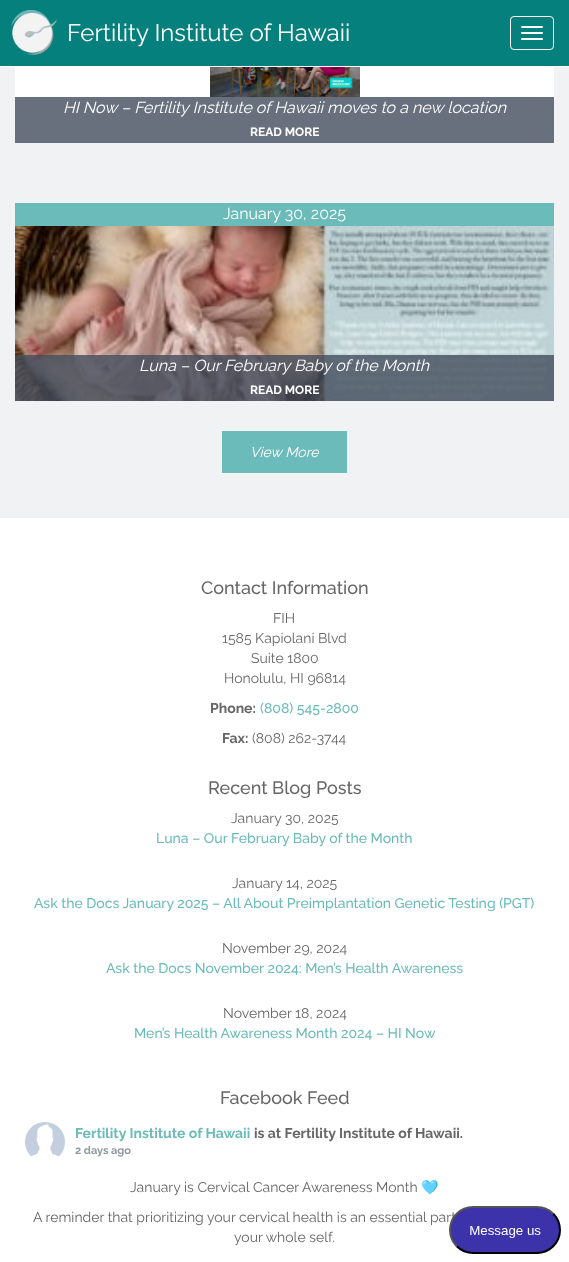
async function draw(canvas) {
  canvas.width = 569;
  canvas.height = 1262;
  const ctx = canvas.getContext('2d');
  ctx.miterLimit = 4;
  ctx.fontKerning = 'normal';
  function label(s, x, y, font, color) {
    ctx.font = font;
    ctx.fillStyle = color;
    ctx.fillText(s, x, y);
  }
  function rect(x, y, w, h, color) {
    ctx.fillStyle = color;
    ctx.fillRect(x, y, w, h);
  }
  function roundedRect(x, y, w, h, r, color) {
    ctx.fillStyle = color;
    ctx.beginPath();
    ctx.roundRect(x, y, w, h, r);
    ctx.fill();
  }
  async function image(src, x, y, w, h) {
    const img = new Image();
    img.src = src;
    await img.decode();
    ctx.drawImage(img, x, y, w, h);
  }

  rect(0, 0, 569, 1262, '#fff');
  rect(0, 0, 569, 66, '#05807d');
  await image('assets/img1.png', 10, 10, 47, 45);
  label('Fertility Institute of Hawaii', 67, 41, '24px Raleway', '#fff');
  ctx.beginPath();
  ctx.roundRect(510.5, 16.5, 43, 33, 3.5);
  ctx.strokeStyle = '#fff';
  ctx.stroke();
  roundedRect(521, 26, 22, 2, 1, '#fff');
  roundedRect(521, 32, 22, 2, 1, '#fff');
  roundedRect(521, 38, 22, 2, 1, '#fff');
  rect(0, 67, 569, 451, '#f1f2f3');
  rect(15, 67, 539, 30, '#fff');
  await image('assets/img2.png', 210, 67, 150, 30);
  rect(15, 97, 539, 46, '#69707d');
  label('HI Now – Fertility Institute of Hawaii moves to a new location', 63, 113, 'italic 16px Raleway', '#fff');
  label('READ MORE', 250, 136, 'bold 12px Raleway', '#fff');
  rect(15, 203, 539, 23, '#6bbbba');
  label('January 30, 2025', 223, 219, '16px Raleway', '#fff');
  await image('assets/img3.png', 15, 226, 539, 175);
  rect(15, 355, 539, 46, '#434c5ccc');
  label('Luna – Our February Baby of the Month', 139, 371, 'italic 16px Raleway', '#fff');
  label('READ MORE', 250, 394, 'bold 12px Raleway', '#fff');
  rect(222, 431, 125, 42, '#6bbbba');
  label('View More', 250, 457, 'italic 14px Raleway', '#fff');
  label('Contact Information', 201, 594, '500 18px Raleway', '#666');
  label('FIH', 273, 623, '14px Raleway', '#666');
  label('1585 Kapiolani Blvd', 222, 643, '14px Raleway', '#666');
  label('Suite 1800', 251, 663, '14px Raleway', '#666');
  label('Honolulu, HI 96814', 224, 683, '14px Raleway', '#666');
  label('Phone:', 210, 713, 'bold 14px Raleway', '#666');
  label('(808) 545-2800', 260, 713, '500 14px Raleway', '#6bbbba');
  label('Fax:', 222, 743, 'bold 14px Raleway', '#666');
  label('(808) 262-3744', 252, 743, '14px Raleway', '#666');
  label('Recent Blog Posts', 208, 794, '500 18px Raleway', '#666');
  label('January 30, 2025', 231, 823, '14px Raleway', '#666');
  label('Luna – Our February Baby of the Month', 156, 843, '500 14px Raleway', '#6bbbba');
  label('January 14, 2025', 232, 888, '14px Raleway', '#666');
  label('Ask the Docs January 2025 – All About Preimplantation Genetic Testing (PGT)', 34, 908, '500 14px Raleway', '#6bbbba');
  label('November 29, 2024', 222, 953, '14px Raleway', '#666');
  label('Ask the Docs November 2024: Men’s Health Awareness', 106, 973, '500 14px Raleway', '#6bbbba');
  label('November 18, 2024', 223, 1018, '14px Raleway', '#666');
  label('Men’s Health Awareness Month 2024 – HI Now', 134, 1038, '500 14px Raleway', '#6bbbba');
  label('Facebook Feed', 220, 1104, '500 18px Raleway', '#666');
  await image('assets/img4.png', 25, 1122, 40, 35);
  label('Fertility Institute of Hawaii', 75, 1138, 'bold 14px Raleway', '#6bbbba');
  label('is at Fertility Institute of Hawaii.', 254, 1138, 'bold 14px Raleway', '#666');
  label('2 days ago', 75, 1154, 'bold 11px Raleway', '#9197a3');
  label('January is Cervical Cancer Awareness Month', 130, 1192, '14px Raleway', '#666');
  label('🩵', 421, 1192, '14px Noto Color Emoji', '#666');
  label('A reminder that prioritizing your cervical health is an essential part', 33, 1222, '14px Raleway', '#666');
  label('your whole self.', 234, 1242, '14px Raleway', '#666');
  await image('assets/img5.png', 449, 1206, 112, 48);
}

draw(document.querySelector('canvas'));
